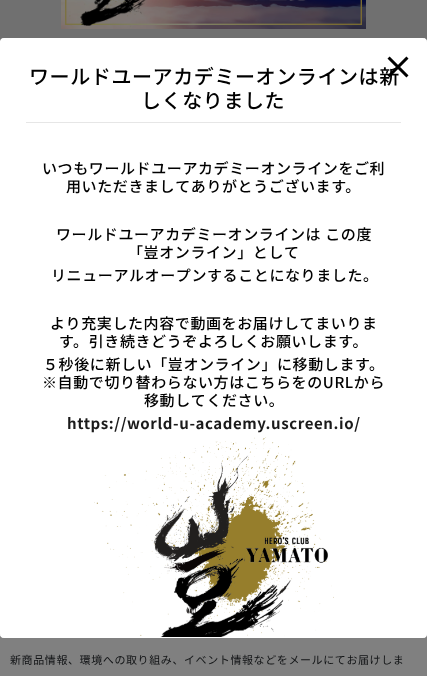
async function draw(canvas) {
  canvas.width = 427;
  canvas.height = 676;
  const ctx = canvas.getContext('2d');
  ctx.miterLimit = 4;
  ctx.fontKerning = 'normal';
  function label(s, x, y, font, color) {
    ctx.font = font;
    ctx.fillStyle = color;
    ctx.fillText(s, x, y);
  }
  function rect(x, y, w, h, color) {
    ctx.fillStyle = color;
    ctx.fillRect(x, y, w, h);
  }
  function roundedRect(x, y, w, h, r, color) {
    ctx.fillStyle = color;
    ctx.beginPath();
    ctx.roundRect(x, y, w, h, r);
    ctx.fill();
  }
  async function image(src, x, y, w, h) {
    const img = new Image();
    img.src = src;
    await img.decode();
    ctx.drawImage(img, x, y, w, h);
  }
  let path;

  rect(0, 0, 427, 676, '#808080');
  rect(0, 0, 427, 42, '#707070');
  roundedRect(0, 38, 427, 600, 4, '#fff');
  path = new Path2D('M4 38.5H423C425 38.5 426.5 40 426.5 42V634C426.5 636 425 637.5 423 637.5H4C2 637.5 .5 636 .5 634V42C.5 40 2 38.5 4 38.5Z');
  ctx.strokeStyle = '#fff';
  ctx.setLineDash([1, 1]);
  ctx.stroke(path);
  ctx.letterSpacing = '0.6px';
  label('ワールドユーアカデミーオンラインは新', 29, 84, '500 20px Noto Sans JP', '#000');
  await image('assets/img1.png', 387, 56, 22, 22);
  label('しくなりました', 141, 108, '500 20px Noto Sans JP', '#000');
  rect(26, 122, 375, 1, '#e6e6e6');
  label('いつもワールドユーアカデミーオンラインをご利', 42, 174, '500 15px Noto Sans JP', '#000');
  label('用いただきましてありがとうございます。', 66, 192, '500 15px Noto Sans JP', '#000');
  label('ワールドユーアカデミーオンラインは この度', 56, 240, '500 15px Noto Sans JP', '#000');
  label('「豈オンライン」として', 128, 258, '500 15px Noto Sans JP', '#000');
  label('リニューアルオープンすることになりました。', 51, 281, '500 15px Noto Sans JP', '#000');
  label('より充実した内容で動画をお届けしてまいりま', 50, 329, '500 15px Noto Sans JP', '#000');
  label('す。引き続きどうぞよろしくお願いします。', 59, 347, '500 15px Noto Sans JP', '#000');
  label('５秒後に新しい「豈オンライン」に移動します。', 43, 370, '500 15px Noto Sans JP', '#000');
  label('※自動で切り替わらない方はこちらをのURLから', 42, 388, '500 15px Noto Sans JP', '#000');
  label('移動してください。', 144, 406, '500 15px Noto Sans JP', '#000');
  label('https://world-u-academy.uscreen.io/', 67, 429, 'bold 15px Noto Sans JP', '#1a1a1a');
  await image('assets/img2.png', 94, 437, 240, 200);
  await image('assets/img3.png', 61, 0, 305, 29);
  label('新商品情報、環境への取り組み、イベント情報などをメールにてお届けしま', 10, 664, '11px Noto Sans JP', '#111315');
}

draw(document.querySelector('canvas'));
